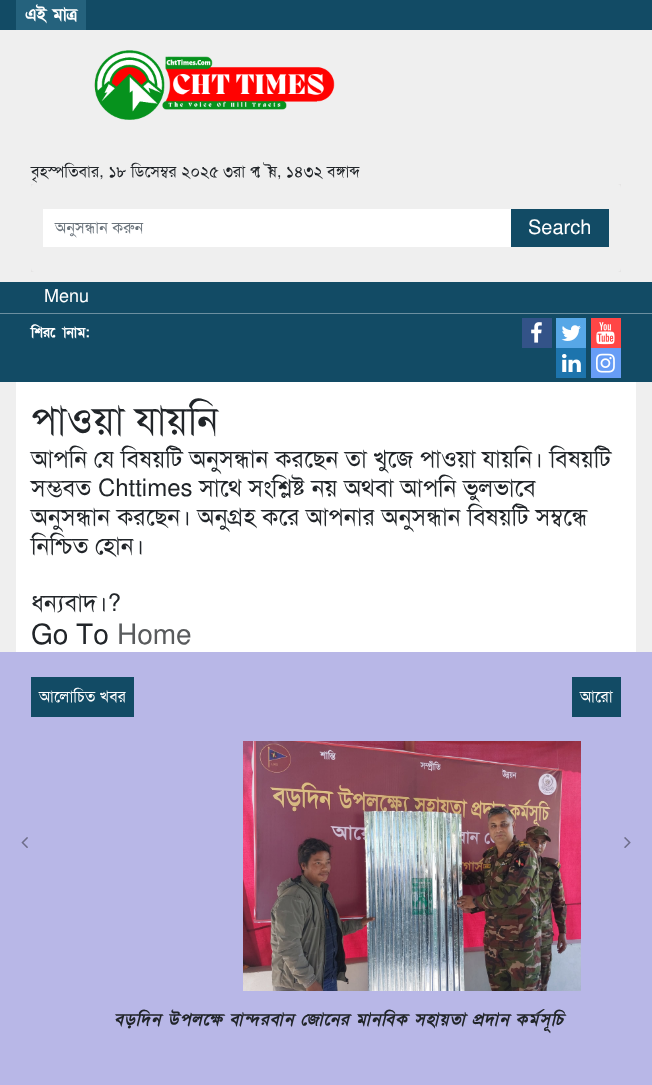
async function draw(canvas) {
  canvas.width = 652;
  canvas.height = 1085;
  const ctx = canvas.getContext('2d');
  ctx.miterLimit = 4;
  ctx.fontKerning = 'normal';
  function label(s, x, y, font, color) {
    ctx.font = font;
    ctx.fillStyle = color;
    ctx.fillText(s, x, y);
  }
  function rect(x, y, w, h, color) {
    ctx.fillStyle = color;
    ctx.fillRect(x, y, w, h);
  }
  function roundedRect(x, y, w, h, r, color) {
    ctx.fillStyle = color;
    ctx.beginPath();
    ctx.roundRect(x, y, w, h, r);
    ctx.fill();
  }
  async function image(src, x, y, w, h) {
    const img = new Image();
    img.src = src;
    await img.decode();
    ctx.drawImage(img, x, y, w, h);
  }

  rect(0, 0, 652, 1085, '#efefef');
  rect(31, 184, 590, 88, '#e5e4e4');
  rect(0, 0, 652, 30, '#124b65');
  rect(16, 0, 70, 30, '#25627d');
  label('এই মাত্র', 25, 20, 'bold 17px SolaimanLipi', '#fff');
  await image('assets/img1.png', 94, 50, 241, 70);
  label('বৃহস্পতিবার, ১৮ ডিসেম্বর ২০২৫ ৩রা পৌষ, ১৪৩২ বঙ্গাব্দ', 31, 177, '16px SolaimanLipi', '#212529');
  roundedRect(31, 184, 590, 88, 4, '#efefef');
  rect(43, 209, 468, 38, '#fff');
  label('অনুসন্ধান করুন', 55, 233, '16px SolaimanLipi', '#6c757d');
  rect(511, 209, 98, 38, '#124b65');
  label('Search', 528, 234, '20px SolaimanLipi', '#fff');
  rect(0, 282, 652, 31, '#124b65');
  label('Menu', 44, 302, '18px SolaimanLipi', '#fff');
  rect(0, 314, 652, 68, '#124b65');
  rect(0, 313, 652, 1, '#6c8fa0');
  label('শিরোনাম:', 31, 337, 'bold 14px SolaimanLipi', '#fff');
  rect(522, 318, 30, 30, '#335388');
  await image('assets/img2.png', 531, 322, 11, 21);
  rect(556, 318, 30, 30, '#57a7e7');
  await image('assets/img3.png', 561, 325, 20, 16);
  rect(591, 318, 30, 30, '#ff4646');
  await image('assets/img4.png', 596, 322, 19, 23);
  rect(556, 348, 30, 30, '#1d74ad');
  await image('assets/img5.png', 562, 354, 19, 18);
  rect(591, 348, 30, 30, '#679df6');
  await image('assets/img6.png', 596, 353, 19, 20);
  rect(16, 382, 620, 270, '#fff');
  label('পাওয়া যায়নি', 31, 434, '40px SolaimanLipi', '#212529');
  label('আপনি যে বিষয়টি অনুসন্ধান করছেন তা খুজে পাওয়া যায়নি। বিষয়টি', 31, 467, '24px SolaimanLipi', '#212529');
  label('সম্ভবত Chttimes সাথে সংশ্লিষ্ট নয় অথবা আপনি ভুলভাবে', 31, 496, '24px SolaimanLipi', '#212529');
  label('অনুসন্ধান করছেন। অনুগ্রহ করে আপনার অনুসন্ধান বিষয়টি সম্বন্ধে', 31, 525, '24px SolaimanLipi', '#212529');
  label('নিশ্চিত হোন।', 31, 554, '24px SolaimanLipi', '#212529');
  label('ধন্যবাদ।?', 31, 611, '24px SolaimanLipi', '#212529');
  label('Go To', 31, 644, '28px SolaimanLipi', '#212529');
  label('Home', 117, 644, '28px SolaimanLipi', '#595b5d');
  rect(0, 652, 652, 433, '#b8b7e7');
  rect(31, 677, 103, 40, '#124b65');
  label('আলোচিত খবর', 39, 702, '16px SolaimanLipi', '#fff');
  rect(572, 677, 49, 40, '#124b65');
  label('আরো', 580, 702, '16px SolaimanLipi', '#fff');
  await image('assets/img7.png', 21, 837, 7, 11);
  await image('assets/img8.png', 624, 837, 7, 11);
  await image('assets/img9.png', 243, 741, 338, 250);
  ctx.letterSpacing = '1px';
  ctx.wordSpacing = '-1px';
  label('বড়দিন উপলক্ষে বান্দরবান জোনের মানবিক সহায়তা প্রদান কর্মসূচি', 114, 1025, 'italic bold 17px SolaimanLipi', '#212529');
}

draw(document.querySelector('canvas'));
